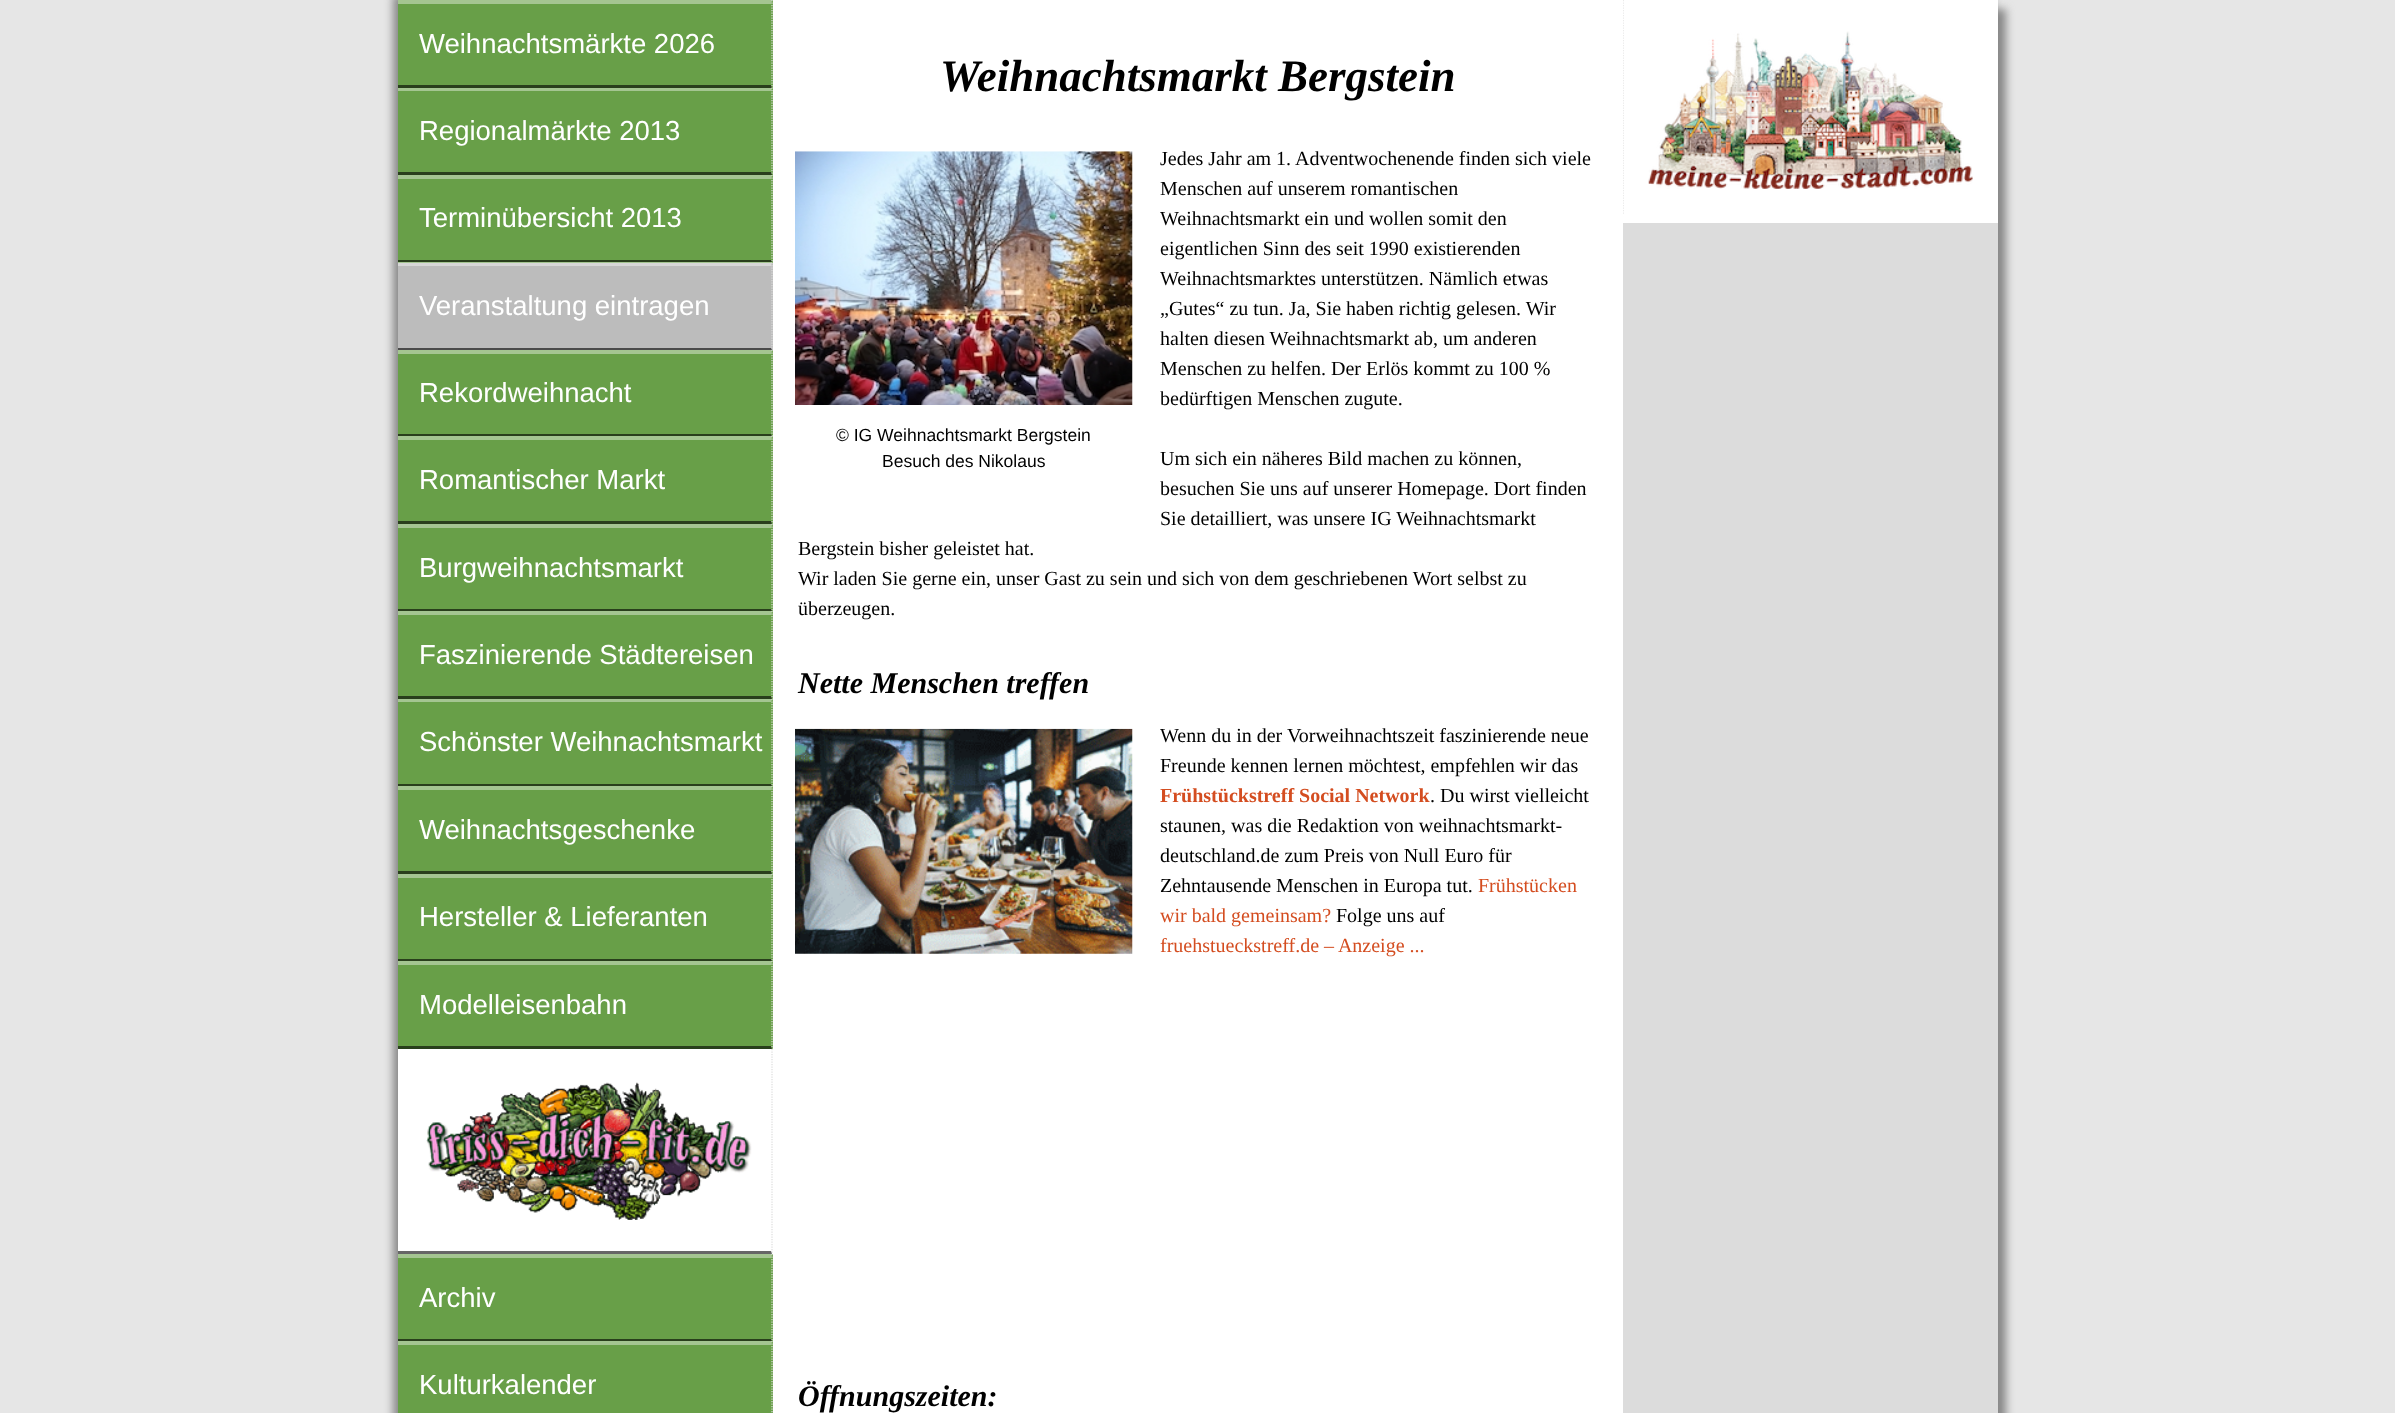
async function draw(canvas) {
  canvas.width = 2395;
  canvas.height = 1413;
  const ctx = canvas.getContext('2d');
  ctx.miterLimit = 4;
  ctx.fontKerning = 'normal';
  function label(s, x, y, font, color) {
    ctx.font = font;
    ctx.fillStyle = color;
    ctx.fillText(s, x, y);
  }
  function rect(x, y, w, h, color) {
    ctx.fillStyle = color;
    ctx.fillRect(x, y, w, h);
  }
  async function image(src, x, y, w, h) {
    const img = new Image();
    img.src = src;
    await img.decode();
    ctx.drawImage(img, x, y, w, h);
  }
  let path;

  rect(0, 0, 2395, 1413, '#e6e6e6');
  ctx.fillStyle = '#888';
  ctx.filter = 'blur(4.5px)';
  ctx.beginPath();
  ctx.rect(393, -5, 1600, 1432);
  ctx.fill();
  ctx.filter = 'none';
  ctx.filter = 'blur(4.5px)';
  ctx.beginPath();
  ctx.rect(406, 9, 1600, 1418);
  ctx.fill();
  ctx.filter = 'none';
  rect(773, 0, 850, 1413, '#fff');
  rect(398, 0, 375, 1413, '#689f48');
  ctx.fillStyle = '#a4c591';
  path = new Path2D('M398 0H772L771 4H398Z');
  ctx.fill(path);
  path = new Path2D('M772 0V87.5');
  ctx.strokeStyle = '#dcdcdc';
  ctx.lineWidth = 1.2;
  ctx.setLineDash([1.25, 1.25]);
  ctx.stroke(path);
  ctx.fillStyle = '#00000099';
  path = new Path2D('M772 88H398V85H771Z');
  ctx.fill(path);
  label('Weihnachtsmärkte 2026', 419, 53, '27.5px Liberation Sans', '#fff');
  ctx.fillStyle = '#a4c591';
  path = new Path2D('M398 88H772L771 91H398Z');
  ctx.fill(path);
  path = new Path2D('M772 87.5V175');
  ctx.stroke(path);
  ctx.fillStyle = '#00000099';
  path = new Path2D('M772 175H398V172H771Z');
  ctx.fill(path);
  label('Regionalmärkte 2013', 419, 140, '27.5px Liberation Sans', '#fff');
  ctx.fillStyle = '#a4c591';
  path = new Path2D('M398 175H772L771 179H398Z');
  ctx.fill(path);
  path = new Path2D('M772 175V262.5');
  ctx.stroke(path);
  ctx.fillStyle = '#00000099';
  path = new Path2D('M772 262H398V260H771Z');
  ctx.fill(path);
  label('Terminübersicht 2013', 419, 227, '27.5px Liberation Sans', '#fff');
  rect(398, 263, 375, 87, '#bcbcbc');
  ctx.fillStyle = '#ffffff66';
  path = new Path2D('M398 262H772L771 266H398Z');
  ctx.fill(path);
  path = new Path2D('M772 262.5V350');
  ctx.stroke(path);
  ctx.fillStyle = '#4b4b4b';
  path = new Path2D('M772 350H398V348H771Z');
  ctx.fill(path);
  label('Veranstaltung eintragen', 419, 315, '27.5px Liberation Sans', '#fff');
  ctx.fillStyle = '#a4c591';
  path = new Path2D('M398 350H772L771 354H398Z');
  ctx.fill(path);
  path = new Path2D('M772 350V436');
  ctx.stroke(path);
  ctx.fillStyle = '#00000099';
  path = new Path2D('M772 436H398V434H771Z');
  ctx.fill(path);
  label('Rekordweihnacht', 419, 402, '27.5px Liberation Sans', '#fff');
  ctx.fillStyle = '#a4c591';
  path = new Path2D('M398 436H772L771 440H398Z');
  ctx.fill(path);
  path = new Path2D('M772 436V524');
  ctx.stroke(path);
  ctx.fillStyle = '#00000099';
  path = new Path2D('M772 524H398V521H771Z');
  ctx.fill(path);
  label('Romantischer Markt', 419, 489, '27.5px Liberation Sans', '#fff');
  ctx.fillStyle = '#a4c591';
  path = new Path2D('M398 524H772L771 528H398Z');
  ctx.fill(path);
  path = new Path2D('M772 524V611');
  ctx.stroke(path);
  ctx.fillStyle = '#00000099';
  path = new Path2D('M772 611H398V609H771Z');
  ctx.fill(path);
  label('Burgweihnachtsmarkt', 419, 577, '27.5px Liberation Sans', '#fff');
  ctx.fillStyle = '#a4c591';
  path = new Path2D('M398 611H772L771 615H398Z');
  ctx.fill(path);
  path = new Path2D('M772 611V699');
  ctx.stroke(path);
  ctx.fillStyle = '#00000099';
  path = new Path2D('M772 699H398V696H771Z');
  ctx.fill(path);
  label('Faszinierende Städtereisen', 419, 664, '27.5px Liberation Sans', '#fff');
  ctx.fillStyle = '#a4c591';
  path = new Path2D('M398 699H772L771 702H398Z');
  ctx.fill(path);
  path = new Path2D('M772 699V786');
  ctx.stroke(path);
  ctx.fillStyle = '#00000099';
  path = new Path2D('M772 786H398V784H771Z');
  ctx.fill(path);
  label('Schönster Weihnachtsmarkt', 419, 751, '27.5px Liberation Sans', '#fff');
  ctx.fillStyle = '#a4c591';
  path = new Path2D('M398 786H772L771 790H398Z');
  ctx.fill(path);
  path = new Path2D('M772 786V874');
  ctx.stroke(path);
  ctx.fillStyle = '#00000099';
  path = new Path2D('M772 874H398V871H771Z');
  ctx.fill(path);
  label('Weihnachtsgeschenke', 419, 839, '27.5px Liberation Sans', '#fff');
  ctx.fillStyle = '#a4c591';
  path = new Path2D('M398 874H772L771 878H398Z');
  ctx.fill(path);
  path = new Path2D('M772 874V961');
  ctx.stroke(path);
  ctx.fillStyle = '#00000099';
  path = new Path2D('M772 961H398V959H771Z');
  ctx.fill(path);
  label('Hersteller & Lieferanten', 419, 926, '27.5px Liberation Sans', '#fff');
  ctx.fillStyle = '#a4c591';
  path = new Path2D('M398 961H772L771 965H398Z');
  ctx.fill(path);
  path = new Path2D('M772 961V1049');
  ctx.stroke(path);
  ctx.fillStyle = '#00000099';
  path = new Path2D('M772 1049H398V1046H771Z');
  ctx.fill(path);
  label('Modelleisenbahn', 419, 1014, '27.5px Liberation Sans', '#fff');
  rect(398, 1049, 375, 205, '#fff');
  path = new Path2D('M772 1049V1254');
  ctx.stroke(path);
  ctx.fillStyle = '#00000099';
  path = new Path2D('M772 1254H398V1251H771Z');
  ctx.fill(path);
  await image('assets/img1.png', 426, 1082, 326, 138);
  ctx.fillStyle = '#a4c591';
  path = new Path2D('M398 1254H772L771 1258H398Z');
  ctx.fill(path);
  path = new Path2D('M772 1254V1341');
  ctx.stroke(path);
  ctx.fillStyle = '#00000099';
  path = new Path2D('M772 1341H398V1339H771Z');
  ctx.fill(path);
  label('Archiv', 419, 1307, '27.5px Liberation Sans', '#fff');
  ctx.fillStyle = '#a4c591';
  path = new Path2D('M398 1341H772L771 1345H398Z');
  ctx.fill(path);
  path = new Path2D('M772 1341V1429');
  ctx.stroke(path);
  label('Kulturkalender', 419, 1394, '27.5px Liberation Sans', '#fff');
  label('Weihnachtsmarkt Bergstein', 940, 91, 'italic bold 45px Liberation Serif', '#000');
  label('Jedes Jahr am 1. Adventwochenende finden sich viele', 1160, 165, '20px Liberation Serif', '#000');
  label('Menschen auf unserem romantischen', 1160, 195, '20px Liberation Serif', '#000');
  label('Weihnachtsmarkt ein und wollen somit den', 1160, 225, '20px Liberation Serif', '#000');
  label('eigentlichen Sinn des seit 1990 existierenden', 1160, 255, '20px Liberation Serif', '#000');
  label('Weihnachtsmarktes unterstützen. Nämlich etwas', 1160, 285, '20px Liberation Serif', '#000');
  label('„Gutes“ zu tun. Ja, Sie haben richtig gelesen. Wir', 1160, 315, '20px Liberation Serif', '#000');
  label('halten diesen Weihnachtsmarkt ab, um anderen', 1160, 345, '20px Liberation Serif', '#000');
  label('Menschen zu helfen. Der Erlös kommt zu 100 %', 1160, 375, '20px Liberation Serif', '#000');
  label('bedürftigen Menschen zugute.', 1160, 405, '20px Liberation Serif', '#000');
  label('Um sich ein näheres Bild machen zu können,', 1160, 465, '20px Liberation Serif', '#000');
  label('besuchen Sie uns auf unserer Homepage. Dort finden', 1160, 495, '20px Liberation Serif', '#000');
  label('Sie detailliert, was unsere IG Weihnachtsmarkt', 1160, 525, '20px Liberation Serif', '#000');
  label('Bergstein bisher geleistet hat.', 798, 555, '20px Liberation Serif', '#000');
  label('Wir laden Sie gerne ein, unser Gast zu sein und sich von dem geschriebenen Wort selbst zu', 798, 585, '20px Liberation Serif', '#000');
  label('überzeugen.', 798, 615, '20px Liberation Serif', '#000');
  await image('assets/img2.png', 795, 151, 338, 254);
  label('© IG Weihnachtsmarkt Bergstein', 836, 441, '17.5px Liberation Sans', '#000');
  label('Besuch des Nikolaus', 882, 467, '17.5px Liberation Sans', '#000');
  label('Nette Menschen treffen', 798, 693, 'italic bold 30px Liberation Serif', '#000');
  await image('assets/img3.png', 795, 728, 338, 226);
  label('Wenn du in der Vorweihnachtszeit faszinierende neue', 1160, 742, '20px Liberation Serif', '#000');
  label('Freunde kennen lernen möchtest, empfehlen wir das', 1160, 772, '20px Liberation Serif', '#000');
  label('Frühstückstreff Social Network', 1160, 802, 'bold 20px Liberation Serif', '#d44d20');
  label('. Du wirst vielleicht', 1430, 802, '20px Liberation Serif', '#000');
  label('staunen, was die Redaktion von weihnachtsmarkt-', 1160, 832, '20px Liberation Serif', '#000');
  label('deutschland.de zum Preis von Null Euro für', 1160, 862, '20px Liberation Serif', '#000');
  label('Zehntausende Menschen in Europa tut.', 1160, 892, '20px Liberation Serif', '#000');
  label('Frühstücken', 1478, 892, '20px Liberation Serif', '#d44d20');
  label('wir bald gemeinsam?', 1160, 922, '20px Liberation Serif', '#d44d20');
  label('Folge uns auf', 1336, 922, '20px Liberation Serif', '#000');
  label('fruehstueckstreff.de – Anzeige ...', 1160, 952, '20px Liberation Serif', '#d44d20');
  label('Öffnungszeiten:', 798, 1406, 'italic bold 30px Liberation Serif', '#000');
  rect(1623, 223, 375, 1190, '#dcdcdc');
  rect(1623, 0, 375, 223, '#fff');
  ctx.save();
  ctx.beginPath();
  ctx.rect(1623, 0, 375, 223);
  ctx.clip();
  path = new Path2D('M1623 0V214');
  ctx.stroke(path);
  ctx.restore();
  await image('assets/img4.png', 1648, 31, 325, 158);
}

draw(document.querySelector('canvas'));
